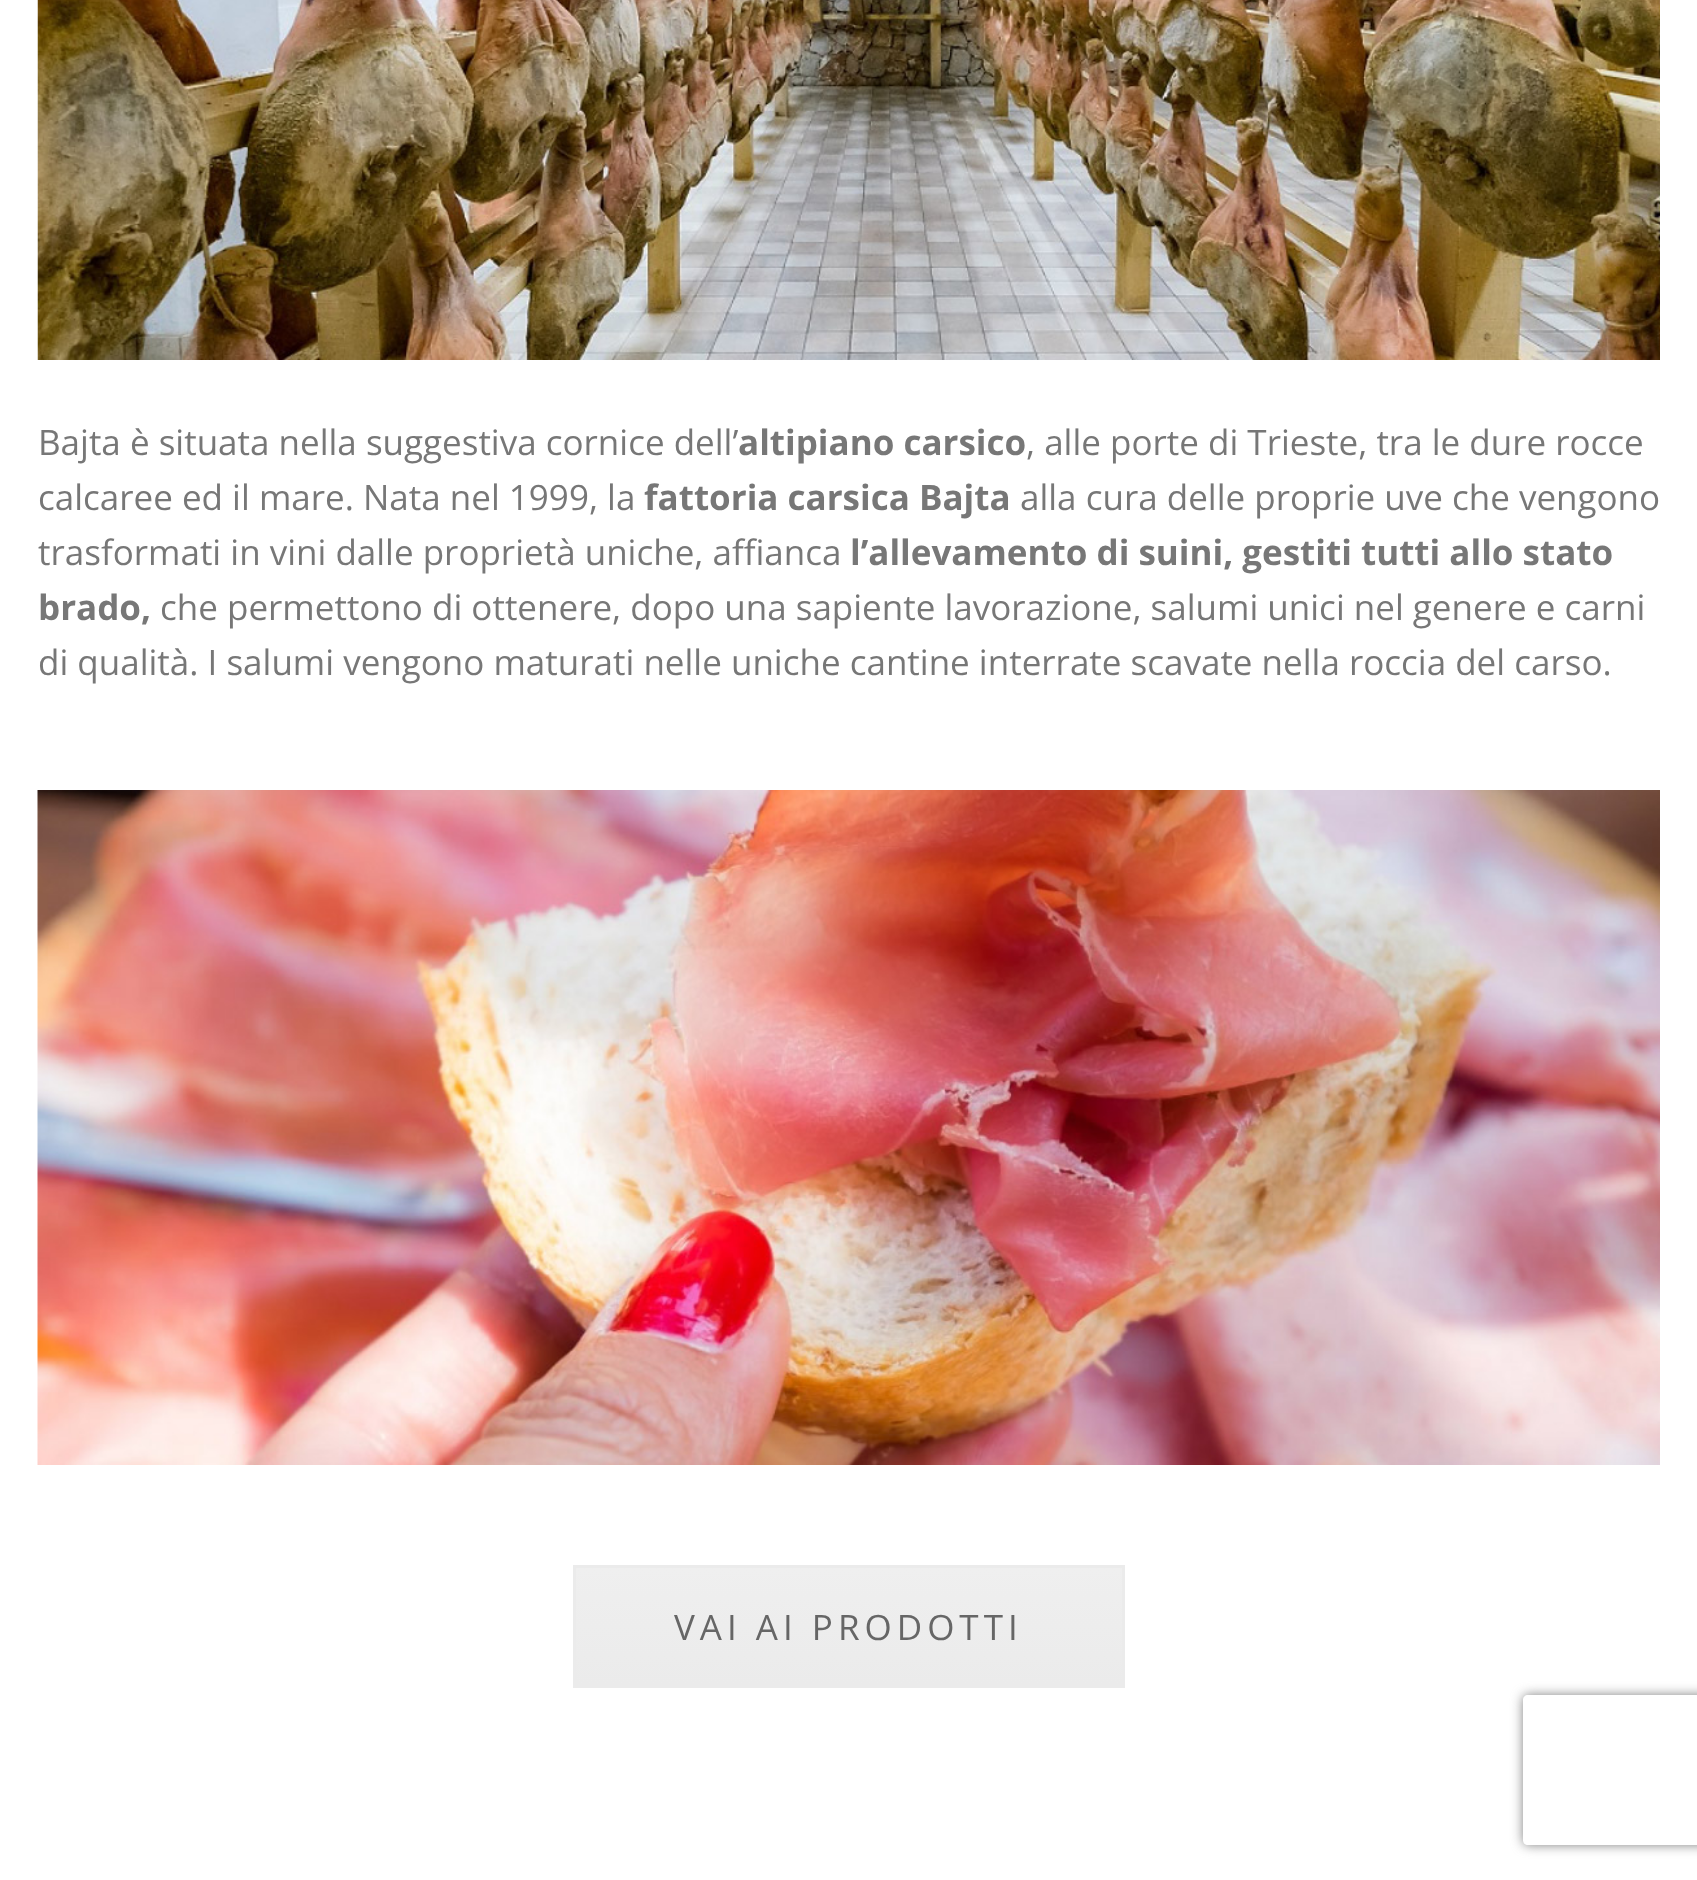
async function draw(canvas) {
  canvas.width = 1697;
  canvas.height = 1880;
  const ctx = canvas.getContext('2d');
  ctx.miterLimit = 4;
  ctx.fontKerning = 'normal';
  function label(s, x, y, font, color) {
    ctx.font = font;
    ctx.fillStyle = color;
    ctx.fillText(s, x, y);
  }
  function rect(x, y, w, h, color) {
    ctx.fillStyle = color;
    ctx.fillRect(x, y, w, h);
  }
  async function image(src, x, y, w, h) {
    const img = new Image();
    img.src = src;
    await img.decode();
    ctx.drawImage(img, x, y, w, h);
  }
  let gradient, path;

  rect(0, 0, 1697, 1880, '#fff');
  await image('assets/img1.png', 37, 0, 1623, 360);
  label('Bajta è situata nella suggestiva cornice dell’', 38, 455, '35px Open Sans', '#777');
  label('altipiano carsico', 738, 455, 'bold 35px Open Sans', '#777');
  label(', alle porte di Trieste, tra le dure rocce', 1026, 455, '35px Open Sans', '#777');
  label('calcaree ed il mare. Nata nel 1999, la', 38, 510, '35px Open Sans', '#777');
  label('fattoria carsica Bajta', 644, 510, 'bold 35px Open Sans', '#777');
  label('alla cura delle proprie uve che vengono', 1020, 510, '35px Open Sans', '#777');
  label('trasformati in vini dalle proprietà uniche, affianca', 38, 565, '35px Open Sans', '#777');
  label('l’allevamento di suini, gestiti tutti allo stato', 850, 565, 'bold 35px Open Sans', '#777');
  label('brado,', 38, 620, 'bold 35px Open Sans', '#777');
  label('che permettono di ottenere, dopo una sapiente lavorazione, salumi unici nel genere e carni', 160, 620, '35px Open Sans', '#777');
  label('di qualità. I salumi vengono maturati nelle uniche cantine interrate scavate nella roccia del carso.', 38, 675, '35px Open Sans', '#777');
  await image('assets/img2.png', 37, 790, 1623, 675);
  gradient = ctx.createLinearGradient(849, 1568, 849, 1685);
  gradient.addColorStop(0, '#efefef');
  gradient.addColorStop(1, '#ebebeb');
  ctx.fillStyle = gradient;
  ctx.fillRect(576, 1568, 546, 117);
  ctx.strokeStyle = '#ebebeb';
  ctx.lineWidth = 3;
  ctx.strokeRect(574.5, 1566.5, 549, 120);
  ctx.letterSpacing = '5px';
  label('VAI AI PRODOTTI', 674, 1640, '35px Open Sans', '#666');
  ctx.save();
  path = new Path2D('M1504 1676H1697V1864H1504ZM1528 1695H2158C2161 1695 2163 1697 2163 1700V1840C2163 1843 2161 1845 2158 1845H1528C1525 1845 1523 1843 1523 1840V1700C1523 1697 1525 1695 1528 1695Z');
  ctx.clip(path, 'evenodd');
  ctx.fillStyle = '#808080';
  ctx.filter = 'blur(6px)';
  ctx.beginPath();
  ctx.roundRect(1523, 1695, 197, 150, 5);
  ctx.fill();
  ctx.filter = 'none';
  ctx.restore();
}

draw(document.querySelector('canvas'));
